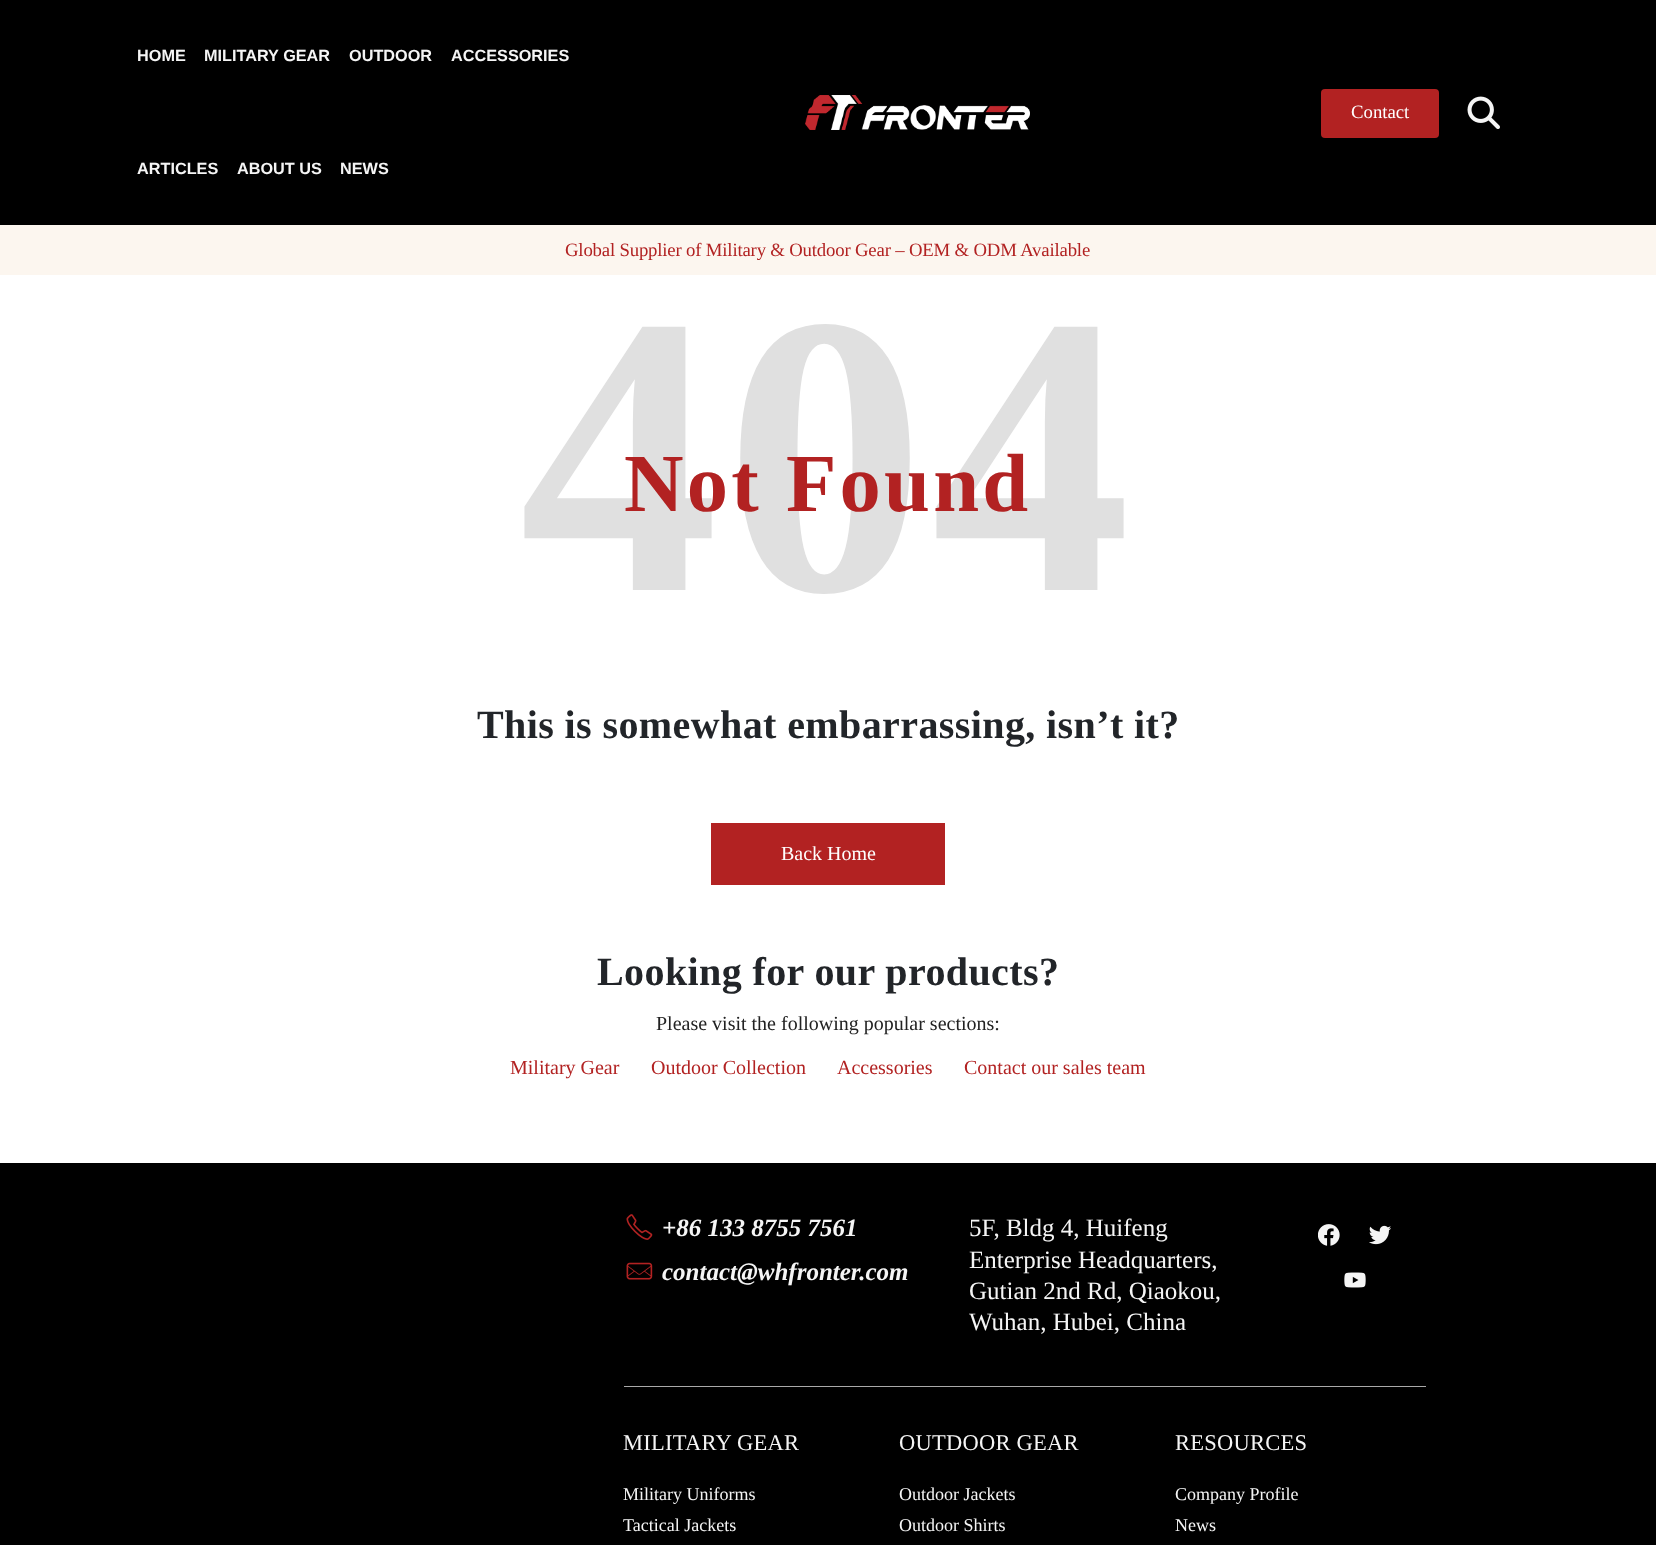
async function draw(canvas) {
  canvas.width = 1656;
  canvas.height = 1545;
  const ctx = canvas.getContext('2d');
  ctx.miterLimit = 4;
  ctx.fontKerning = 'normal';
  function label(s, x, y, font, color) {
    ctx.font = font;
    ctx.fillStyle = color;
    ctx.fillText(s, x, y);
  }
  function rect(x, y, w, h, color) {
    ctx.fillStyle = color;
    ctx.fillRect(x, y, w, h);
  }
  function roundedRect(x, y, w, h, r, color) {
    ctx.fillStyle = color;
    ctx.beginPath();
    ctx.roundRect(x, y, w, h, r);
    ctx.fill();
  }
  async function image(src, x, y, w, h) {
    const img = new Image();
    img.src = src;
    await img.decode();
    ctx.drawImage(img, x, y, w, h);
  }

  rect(0, 0, 1656, 1545, '#fff');
  rect(0, 0, 1656, 225, '#000');
  label('HOME', 137, 61, 'bold 16.25px Liberation Sans', '#f5f5f5');
  label('MILITARY GEAR', 204, 61, 'bold 16.25px Liberation Sans', '#f5f5f5');
  label('OUTDOOR', 349, 61, 'bold 16.25px Liberation Sans', '#f5f5f5');
  label('ACCESSORIES', 451, 61, 'bold 16.25px Liberation Sans', '#f5f5f5');
  label('ARTICLES', 137, 174, 'bold 16.25px Liberation Sans', '#f5f5f5');
  label('ABOUT US', 237, 174, 'bold 16.25px Liberation Sans', '#f5f5f5');
  label('NEWS', 340, 174, 'bold 16.25px Liberation Sans', '#f5f5f5');
  await image('assets/img1.png', 805, 95, 225, 35);
  roundedRect(1321, 89, 118, 49, 4, '#b22222');
  label('Contact', 1351, 118, '18.75px Liberation Serif', '#fff');
  await image('assets/img2.png', 1467, 96, 33, 33);
  rect(0, 225, 1656, 50, '#fcf6ef');
  ctx.letterSpacing = '-0.18px';
  label('Global Supplier of Military & Outdoor Gear – OEM & ODM Available', 565, 256, '18.75px Liberation Serif', '#b22222');
  ctx.letterSpacing = '6px';
  label('404', 519, 590, 'bold 400px Liberation Serif', '#e0e0e0');
  ctx.letterSpacing = '3.25px';
  label('Not Found', 624, 511, 'bold 82.5px Liberation Serif', '#b22222');
  ctx.letterSpacing = '0.4px';
  label('This is somewhat embarrassing, isn’t it?', 477, 738, 'bold 40px Liberation Serif', '#222529');
  rect(711, 823, 234, 62, '#b22222');
  ctx.letterSpacing = '0px';
  label('Back Home', 781, 860, '20px Liberation Serif', '#fff');
  ctx.letterSpacing = '0.4px';
  label('Looking for our products?', 597, 985, 'bold 40px Liberation Serif', '#222529');
  ctx.letterSpacing = '0px';
  label('Please visit the following popular sections:', 656, 1030, '20px Liberation Serif', '#222');
  label('Military Gear', 510, 1074, '20px Liberation Serif', '#b22222');
  label('Outdoor Collection', 651, 1074, '20px Liberation Serif', '#b22222');
  label('Accessories', 837, 1074, '20px Liberation Serif', '#b22222');
  label('Contact our sales team', 964, 1074, '20px Liberation Serif', '#b22222');
  rect(0, 1163, 1656, 382, '#000');
  await image('assets/img3.png', 626, 1214, 27, 26);
  label('+86 133 8755 7561', 662, 1236, 'italic bold 25px Liberation Serif', '#f5f5f5');
  await image('assets/img4.png', 626, 1262, 27, 18);
  label('contact@whfronter.com', 662, 1280, 'italic bold 25px Liberation Serif', '#f5f5f5');
  label('5F, Bldg 4, Huifeng', 969, 1236, '25px Liberation Serif', '#f5f5f5');
  label('Enterprise Headquarters,', 969, 1268, '25px Liberation Serif', '#f5f5f5');
  label('Gutian 2nd Rd, Qiaokou,', 969, 1299, '25px Liberation Serif', '#f5f5f5');
  label('Wuhan, Hubei, China', 969, 1330, '25px Liberation Serif', '#f5f5f5');
  await image('assets/img5.png', 1318, 1224, 22, 22);
  await image('assets/img6.png', 1369, 1225, 22, 20);
  await image('assets/img7.png', 1344, 1272, 22, 16);
  rect(624, 1386, 802, 1, '#a9a9a9');
  ctx.letterSpacing = '0.25px';
  label('MILITARY GEAR', 623, 1450, '22.5px Liberation Serif', '#f5f5f5');
  ctx.letterSpacing = '0px';
  label('Military Uniforms', 623, 1500, '18px Liberation Serif', '#f5f5f5');
  label('Tactical Jackets', 623, 1531, '18px Liberation Serif', '#f5f5f5');
  ctx.letterSpacing = '0.25px';
  label('OUTDOOR GEAR', 899, 1450, '22.5px Liberation Serif', '#f5f5f5');
  ctx.letterSpacing = '0px';
  label('Outdoor Jackets', 899, 1500, '18px Liberation Serif', '#f5f5f5');
  label('Outdoor Shirts', 899, 1531, '18px Liberation Serif', '#f5f5f5');
  ctx.letterSpacing = '0.25px';
  label('RESOURCES', 1175, 1450, '22.5px Liberation Serif', '#f5f5f5');
  ctx.letterSpacing = '0px';
  label('Company Profile', 1175, 1500, '18px Liberation Serif', '#f5f5f5');
  label('News', 1175, 1531, '18px Liberation Serif', '#f5f5f5');
}

draw(document.querySelector('canvas'));
